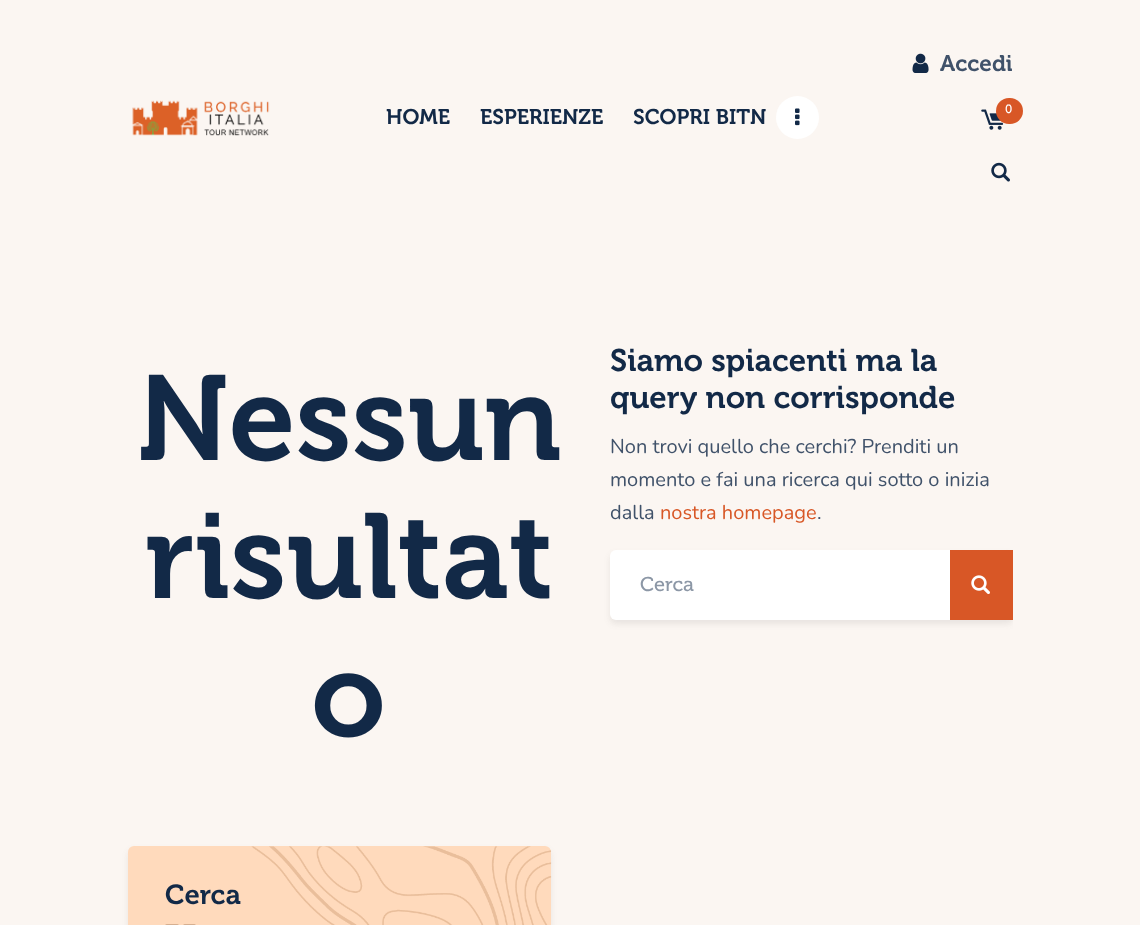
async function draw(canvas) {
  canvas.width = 1140;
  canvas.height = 925;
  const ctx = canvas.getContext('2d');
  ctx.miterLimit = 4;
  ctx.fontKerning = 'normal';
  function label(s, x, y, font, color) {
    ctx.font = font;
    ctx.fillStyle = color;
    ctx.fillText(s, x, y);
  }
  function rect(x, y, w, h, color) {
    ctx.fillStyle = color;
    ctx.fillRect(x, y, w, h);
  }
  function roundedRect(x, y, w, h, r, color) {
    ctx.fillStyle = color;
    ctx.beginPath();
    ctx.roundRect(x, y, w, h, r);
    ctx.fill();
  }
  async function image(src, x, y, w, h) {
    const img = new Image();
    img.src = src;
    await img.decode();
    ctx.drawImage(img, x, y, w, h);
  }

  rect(0, 0, 1140, 925, '#fbf6f2');
  await image('assets/img1.png', 912, 53, 17, 20);
  label('Accedi', 940, 71, '600 22.5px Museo', '#40526a');
  await image('assets/img2.png', 981, 109, 23, 21);
  roundedRect(996, 98, 27, 26, 13, '#d85726');
  label('0', 1005, 113, '12px Museo', '#fff');
  await image('assets/img3.png', 991, 162, 19, 20);
  await image('assets/img4.png', 132, 100, 138, 36);
  label('HOME', 386, 124, '600 21.25px Museo', '#122947');
  label('ESPERIENZE', 480, 124, '600 21.25px Museo', '#122947');
  label('SCOPRI BITN', 633, 124, '600 21.25px Museo', '#122947');
  ctx.fillStyle = '#fff';
  ctx.beginPath();
  ctx.arc(797.5, 117.5, 21.5, 0, 2 * Math.PI);
  ctx.fill();
  await image('assets/img5.png', 795, 108, 5, 18);
  label('Nessun', 137, 460, '600 120px Museo', '#122947');
  label('risultat', 145, 598, '600 120px Museo', '#122947');
  label('o', 311, 736, '600 120px Museo', '#122947');
  label('Siamo spiacenti ma la', 610, 371, '600 31.25px Museo', '#122947');
  label('query non corrisponde', 610, 408, '600 31.25px Museo', '#122947');
  label('Non trovi quello che cerchi? Prenditi un', 610, 453, '20px Nunito', '#40526a');
  label('momento e fai una ricerca qui sotto o inizia', 610, 486, '20px Nunito', '#40526a');
  label('dalla', 610, 519, '20px Nunito', '#40526a');
  label('nostra homepage', 660, 519, '20px Nunito', '#d85726');
  label('.', 817, 519, '20px Nunito', '#40526a');
  ctx.save();
  ctx.beginPath();
  ctx.rect(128, 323, 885, 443);
  ctx.clip();
  ctx.fillStyle = '#4646461a';
  ctx.filter = 'blur(3px)';
  ctx.beginPath();
  ctx.roundRect(610, 554, 403, 70, 6);
  ctx.fill();
  ctx.filter = 'none';
  ctx.restore();
  roundedRect(610, 550, 403, 70, 6, '#fff');
  label('Cerca', 640, 591, '20px Museo', '#8c97a6');
  rect(950, 550, 63, 70, '#d85726');
  await image('assets/img6.png', 971, 575, 19, 19);
  ctx.fillStyle = '#4646461a';
  ctx.filter = 'blur(3px)';
  ctx.beginPath();
  ctx.roundRect(128, 850, 423, 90, 6);
  ctx.fill();
  ctx.filter = 'none';
  roundedRect(128, 846, 423, 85, 6, '#ffdabc');
  await image('assets/img7.png', 251, 846, 301, 79);
  label('Cerca', 165, 904, '600 27.5px Museo', '#122947');
  roundedRect(165, 924, 14, 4, 3, '#d6af90');
  roundedRect(183, 924, 13, 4, 3, '#d6af90');
}

draw(document.querySelector('canvas'));
